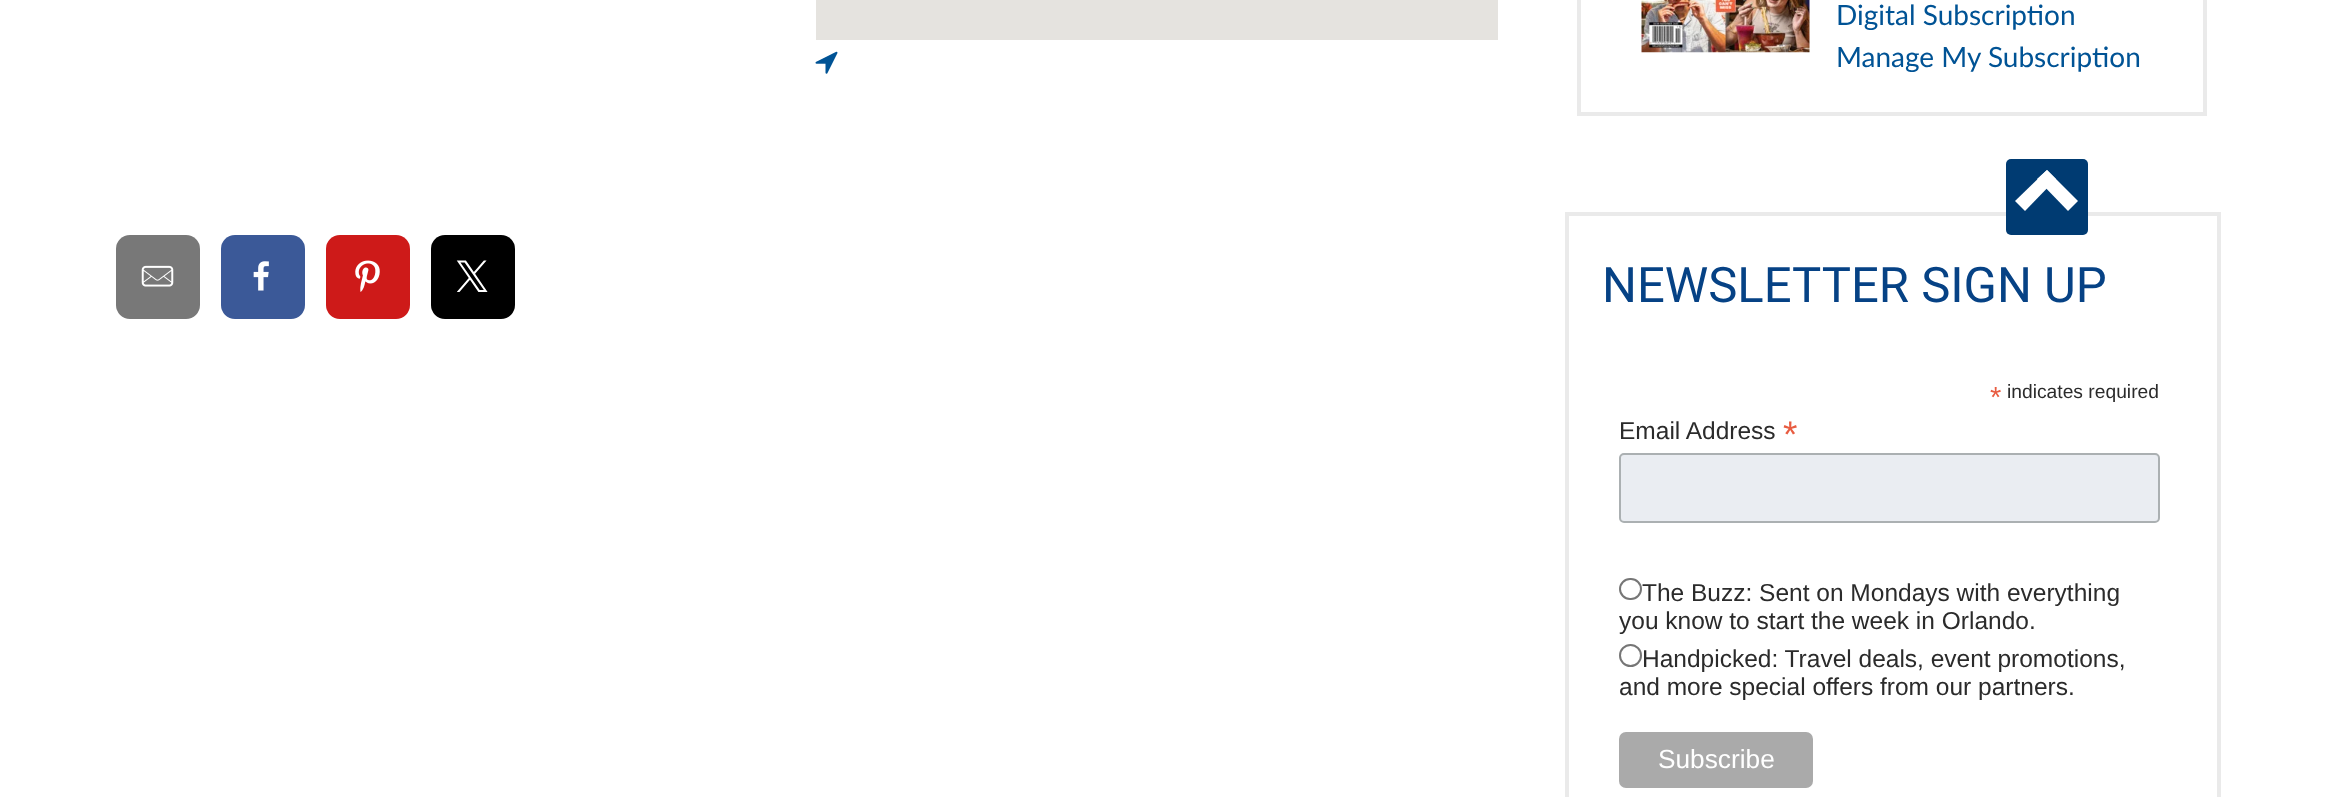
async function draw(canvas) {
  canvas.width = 2339;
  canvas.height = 797;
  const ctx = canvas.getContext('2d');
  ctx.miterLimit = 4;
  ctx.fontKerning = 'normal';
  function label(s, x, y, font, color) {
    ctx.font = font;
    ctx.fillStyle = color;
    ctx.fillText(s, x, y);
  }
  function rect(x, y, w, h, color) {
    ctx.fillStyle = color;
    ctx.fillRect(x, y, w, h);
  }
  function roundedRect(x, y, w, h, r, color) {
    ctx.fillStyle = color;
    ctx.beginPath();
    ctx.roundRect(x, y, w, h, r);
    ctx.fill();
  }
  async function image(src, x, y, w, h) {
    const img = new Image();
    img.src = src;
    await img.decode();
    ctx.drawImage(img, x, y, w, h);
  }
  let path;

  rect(0, 0, 2339, 797, '#fff');
  rect(816, 0, 682, 40, '#e5e3df');
  await image('assets/img1.png', 815, 51, 23, 23);
  roundedRect(116, 235, 84, 84, 14, '#787878');
  await image('assets/img2.png', 141, 265, 33, 22);
  roundedRect(221, 235, 84, 84, 14, '#3b5998');
  await image('assets/img3.png', 253, 261, 16, 30);
  roundedRect(326, 235, 84, 84, 14, '#ce1a19');
  await image('assets/img4.png', 355, 260, 25, 32);
  roundedRect(431, 235, 84, 84, 14, '#000');
  await image('assets/img5.png', 456, 260, 32, 32);
  ctx.strokeStyle = '#eaeaea';
  ctx.lineWidth = 4;
  ctx.strokeRect(1579, -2, 626, 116);
  await image('assets/img6.png', 1641, 0, 169, 53);
  label('Digital Subscription', 1836, 25, '28px Lato', '#005395');
  label('Manage My Subscription', 1836, 67, '28px Lato', '#005395');
  ctx.strokeRect(1567, 214, 652, 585);
  roundedRect(2006, 159, 82, 76, 5, '#003b72');
  ctx.fillStyle = '#fff';
  path = new Path2D('M2015 201L2047 170L2056 179L2025 211Z');
  ctx.fill(path);
  path = new Path2D('M2037 179L2047 170L2078 201L2068 211Z');
  ctx.fill(path);
  label('NEWSLETTER SIGN UP', 1602, 302, '49px Roboto', '#064285');
  label('*', 1990, 407, '29px Liberation Sans', '#e85c41');
  label('indicates required', 2007, 398, '19.25px Liberation Sans', '#2b2b2b');
  label('Email Address', 1619, 439, '24.5px Liberation Sans', '#2b2b2b');
  label('*', 1783, 447, '37px Liberation Sans', '#e85c41');
  ctx.fillStyle = '#eaedf2';
  ctx.beginPath();
  ctx.roundRect(1620, 454, 539, 68, 4);
  ctx.fill();
  ctx.strokeStyle = '#abb0b2';
  ctx.lineWidth = 2;
  ctx.stroke();
  ctx.beginPath();
  ctx.roundRect(1620, 579, 21, 20, 10);
  ctx.strokeStyle = '#767676';
  ctx.stroke();
  label('The Buzz: Sent on Mondays with everything', 1642, 601, '24.5px Liberation Sans', '#2b2b2b');
  label('you know to start the week in Orlando.', 1619, 629, '24.5px Liberation Sans', '#2b2b2b');
  ctx.beginPath();
  ctx.arc(1630.5, 655.5, 10.5, 0, 2 * Math.PI);
  ctx.stroke();
  label('Handpicked: Travel deals, event promotions,', 1642, 667, '24.5px Liberation Sans', '#2b2b2b');
  label('and more special offers from our partners.', 1619, 695, '24.5px Liberation Sans', '#2b2b2b');
  roundedRect(1619, 732, 194, 56, 7, '#aaa');
  label('Subscribe', 1658, 768, '26.25px Liberation Sans', '#fff');
}

draw(document.querySelector('canvas'));
